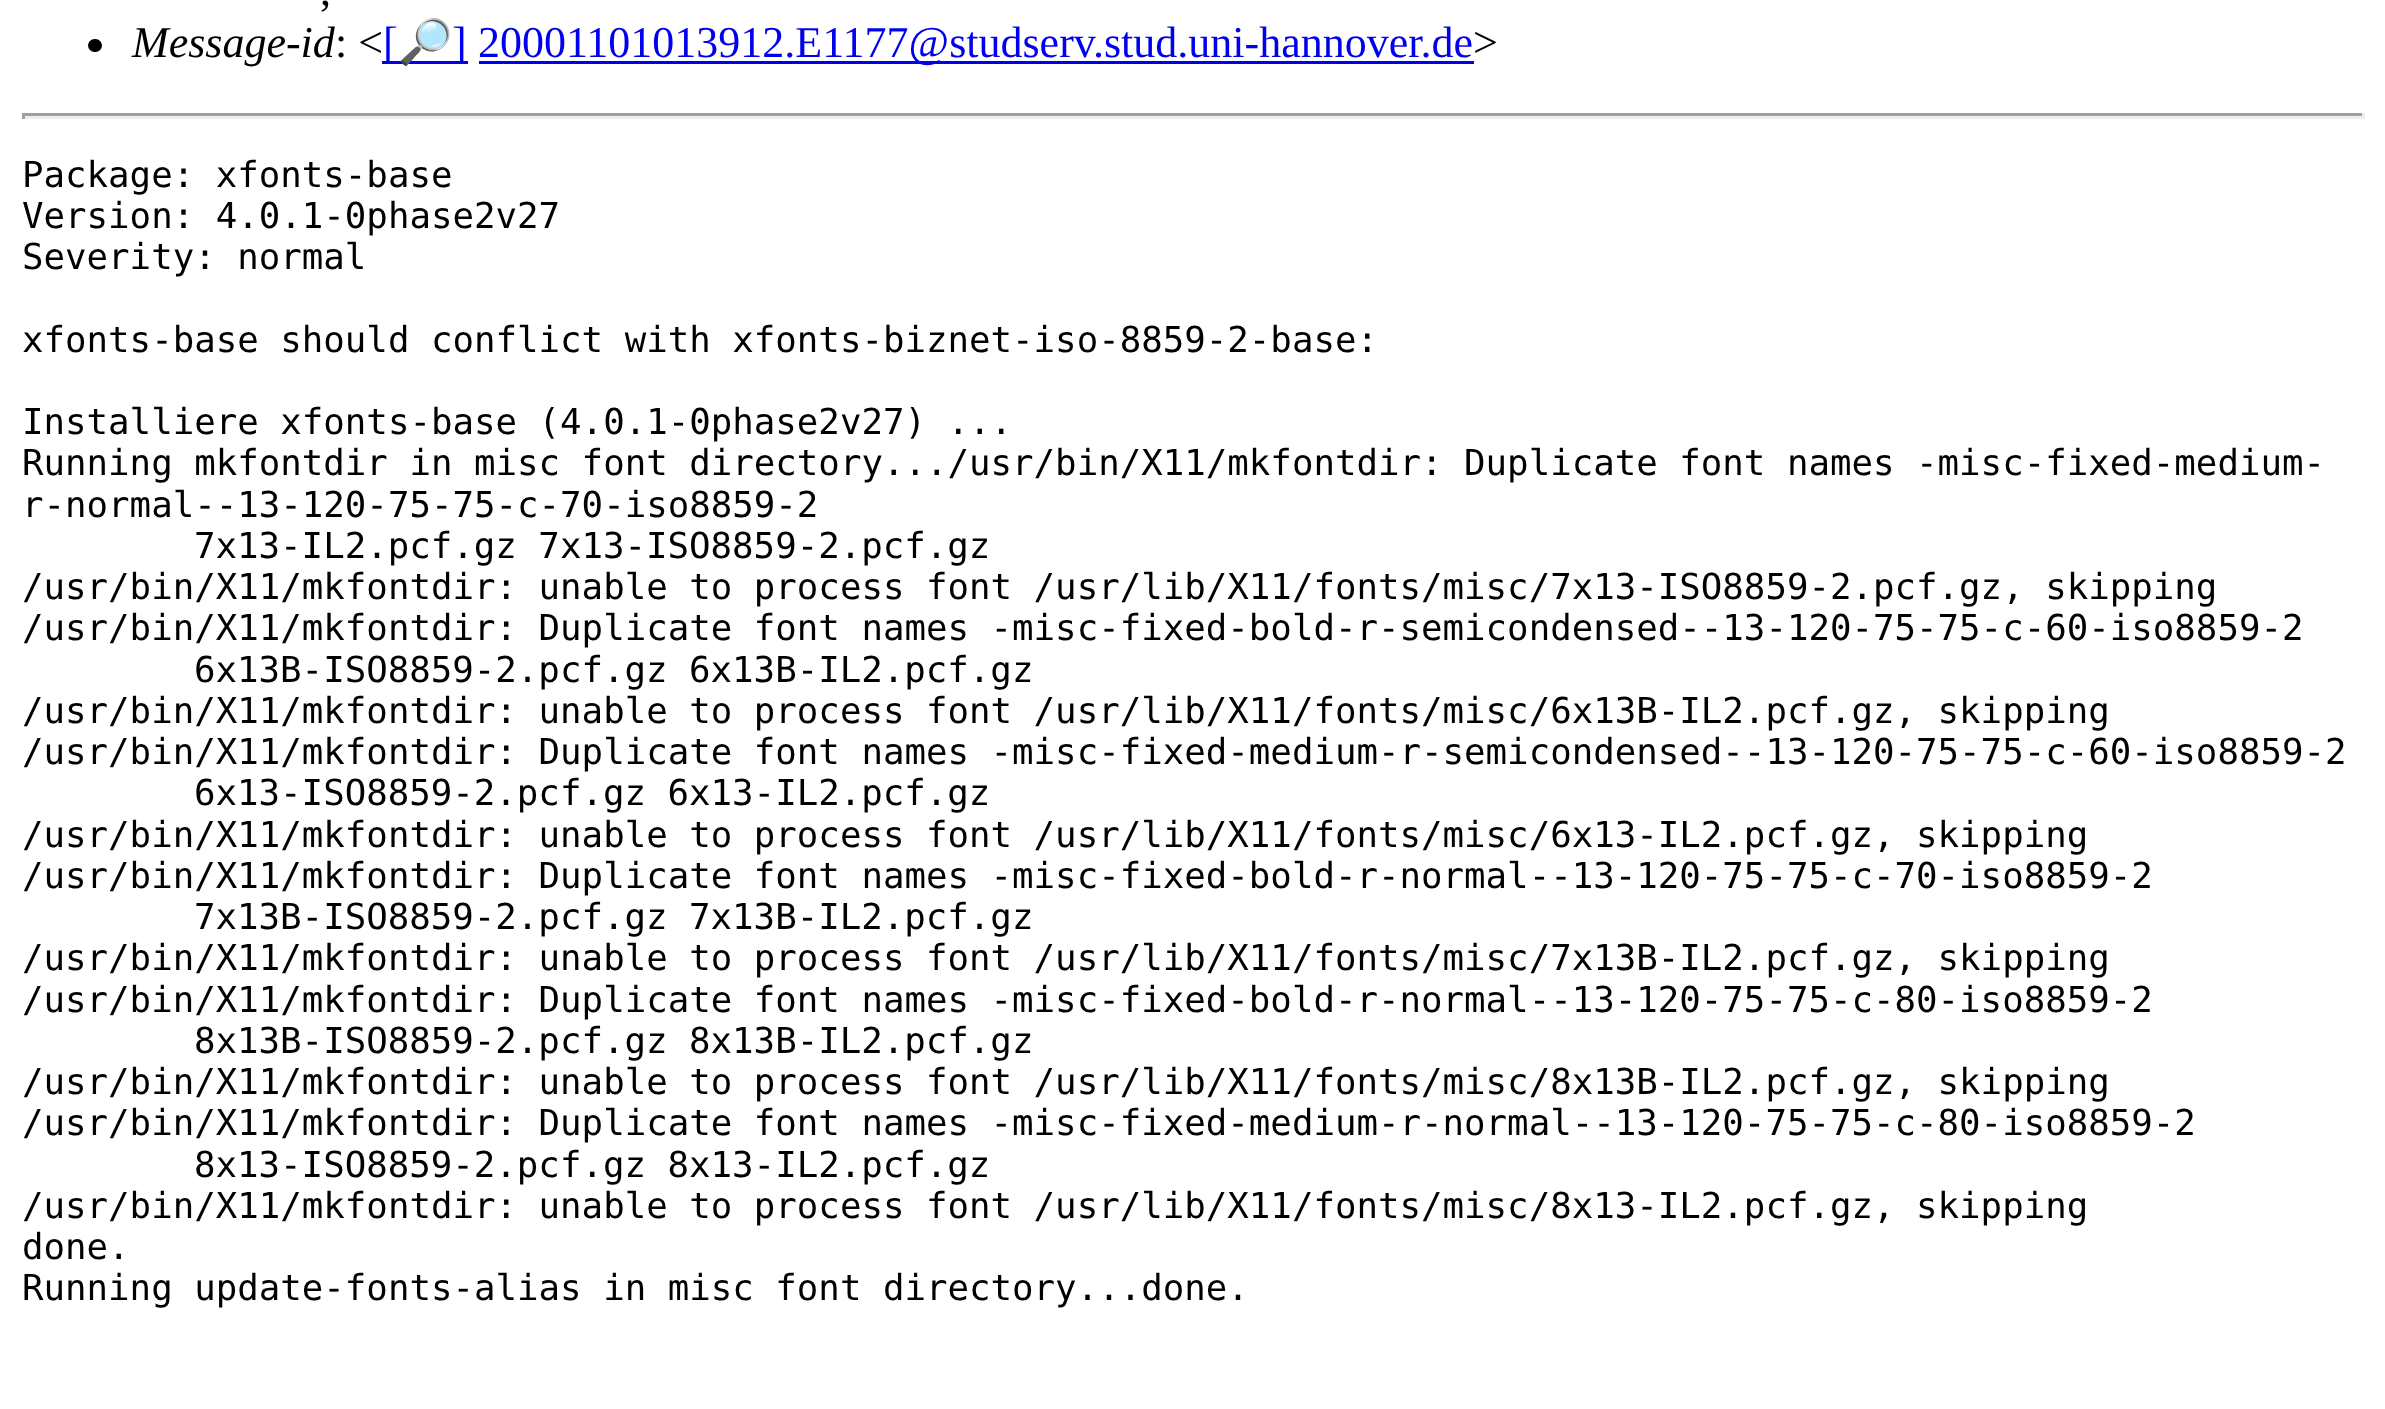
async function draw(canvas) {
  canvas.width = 2385;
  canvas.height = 1409;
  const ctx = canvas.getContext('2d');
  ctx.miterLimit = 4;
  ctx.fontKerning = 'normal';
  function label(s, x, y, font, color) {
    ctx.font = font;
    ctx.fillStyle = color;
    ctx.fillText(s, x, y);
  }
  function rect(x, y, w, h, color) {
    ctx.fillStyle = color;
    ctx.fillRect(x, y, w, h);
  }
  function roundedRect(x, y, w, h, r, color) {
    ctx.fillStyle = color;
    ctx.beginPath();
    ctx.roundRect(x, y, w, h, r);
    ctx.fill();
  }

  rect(0, 0, 2385, 1409, '#fff');
  label(',', 320, 5, '44px Liberation Serif', '#000');
  roundedRect(88, 39, 14, 13, 6.5, '#000');
  label('Message-id', 132, 57, 'italic 44px Liberation Serif', '#000');
  label(': <', 335, 57, '44px Liberation Serif', '#000');
  rect(382, 61, 86, 3, '#00e');
  label('[', 383, 57, '44px Liberation Serif', '#00e');
  label('🔎', 398, 57, '44px Noto Color Emoji', '#00e');
  label(']', 452, 57, '44px Liberation Serif', '#00e');
  rect(479, 61, 995, 3, '#00e');
  label('20001101013912.E1177@studserv.stud.uni-hannover.de', 478, 57, '44px Liberation Serif', '#00e');
  label('>', 1473, 57, '44px Liberation Serif', '#000');
  rect(22, 113, 2343, 3, '#9f9f9f');
  rect(2362, 113, 3, 6, '#eee');
  rect(22, 116, 2343, 3, '#eee');
  rect(22, 113, 3, 6, '#9f9f9f');
  label('Package: xfonts-base', 22, 187, '35.75px DejaVu Sans Mono', '#000');
  label('Version: 4.0.1-0phase2v27', 22, 228, '35.75px DejaVu Sans Mono', '#000');
  label('Severity: normal', 22, 269, '35.75px DejaVu Sans Mono', '#000');
  label('xfonts-base should conflict with xfonts-biznet-iso-8859-2-base:', 22, 352, '35.75px DejaVu Sans Mono', '#000');
  label('Installiere xfonts-base (4.0.1-0phase2v27) ...', 22, 434, '35.75px DejaVu Sans Mono', '#000');
  label('Running mkfontdir in misc font directory.../usr/bin/X11/mkfontdir: Duplicate font names -misc-fixed-medium-', 22, 475, '35.75px DejaVu Sans Mono', '#000');
  label('r-normal--13-120-75-75-c-70-iso8859-2', 22, 517, '35.75px DejaVu Sans Mono', '#000');
  label('7x13-IL2.pcf.gz 7x13-ISO8859-2.pcf.gz', 194, 558, '35.75px DejaVu Sans Mono', '#000');
  label('/usr/bin/X11/mkfontdir: unable to process font /usr/lib/X11/fonts/misc/7x13-ISO8859-2.pcf.gz, skipping', 22, 599, '35.75px DejaVu Sans Mono', '#000');
  label('/usr/bin/X11/mkfontdir: Duplicate font names -misc-fixed-bold-r-semicondensed--13-120-75-75-c-60-iso8859-2', 22, 640, '35.75px DejaVu Sans Mono', '#000');
  label('6x13B-ISO8859-2.pcf.gz 6x13B-IL2.pcf.gz', 194, 682, '35.75px DejaVu Sans Mono', '#000');
  label('/usr/bin/X11/mkfontdir: unable to process font /usr/lib/X11/fonts/misc/6x13B-IL2.pcf.gz, skipping', 22, 723, '35.75px DejaVu Sans Mono', '#000');
  label('/usr/bin/X11/mkfontdir: Duplicate font names -misc-fixed-medium-r-semicondensed--13-120-75-75-c-60-iso8859-2', 22, 764, '35.75px DejaVu Sans Mono', '#000');
  label('6x13-ISO8859-2.pcf.gz 6x13-IL2.pcf.gz', 194, 805, '35.75px DejaVu Sans Mono', '#000');
  label('/usr/bin/X11/mkfontdir: unable to process font /usr/lib/X11/fonts/misc/6x13-IL2.pcf.gz, skipping', 22, 847, '35.75px DejaVu Sans Mono', '#000');
  label('/usr/bin/X11/mkfontdir: Duplicate font names -misc-fixed-bold-r-normal--13-120-75-75-c-70-iso8859-2', 22, 888, '35.75px DejaVu Sans Mono', '#000');
  label('7x13B-ISO8859-2.pcf.gz 7x13B-IL2.pcf.gz', 194, 929, '35.75px DejaVu Sans Mono', '#000');
  label('/usr/bin/X11/mkfontdir: unable to process font /usr/lib/X11/fonts/misc/7x13B-IL2.pcf.gz, skipping', 22, 970, '35.75px DejaVu Sans Mono', '#000');
  label('/usr/bin/X11/mkfontdir: Duplicate font names -misc-fixed-bold-r-normal--13-120-75-75-c-80-iso8859-2', 22, 1012, '35.75px DejaVu Sans Mono', '#000');
  label('8x13B-ISO8859-2.pcf.gz 8x13B-IL2.pcf.gz', 194, 1053, '35.75px DejaVu Sans Mono', '#000');
  label('/usr/bin/X11/mkfontdir: unable to process font /usr/lib/X11/fonts/misc/8x13B-IL2.pcf.gz, skipping', 22, 1094, '35.75px DejaVu Sans Mono', '#000');
  label('/usr/bin/X11/mkfontdir: Duplicate font names -misc-fixed-medium-r-normal--13-120-75-75-c-80-iso8859-2', 22, 1135, '35.75px DejaVu Sans Mono', '#000');
  label('8x13-ISO8859-2.pcf.gz 8x13-IL2.pcf.gz', 194, 1177, '35.75px DejaVu Sans Mono', '#000');
  label('/usr/bin/X11/mkfontdir: unable to process font /usr/lib/X11/fonts/misc/8x13-IL2.pcf.gz, skipping', 22, 1218, '35.75px DejaVu Sans Mono', '#000');
  label('done.', 22, 1259, '35.75px DejaVu Sans Mono', '#000');
  label('Running update-fonts-alias in misc font directory...done.', 22, 1300, '35.75px DejaVu Sans Mono', '#000');
}

draw(document.querySelector('canvas'));
